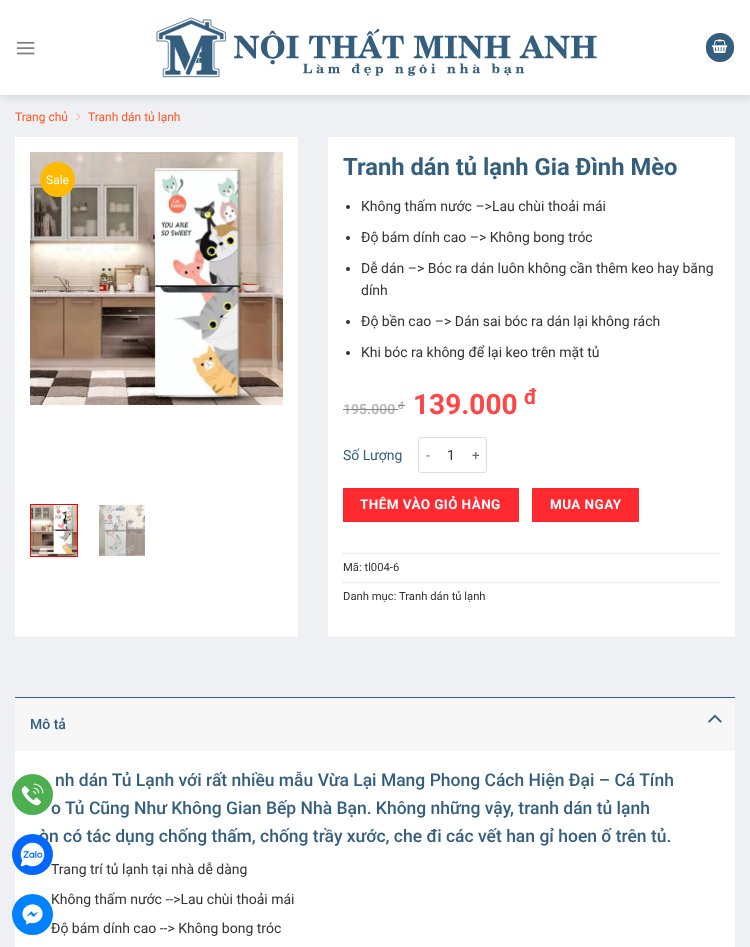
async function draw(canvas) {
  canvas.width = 750;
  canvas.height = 947;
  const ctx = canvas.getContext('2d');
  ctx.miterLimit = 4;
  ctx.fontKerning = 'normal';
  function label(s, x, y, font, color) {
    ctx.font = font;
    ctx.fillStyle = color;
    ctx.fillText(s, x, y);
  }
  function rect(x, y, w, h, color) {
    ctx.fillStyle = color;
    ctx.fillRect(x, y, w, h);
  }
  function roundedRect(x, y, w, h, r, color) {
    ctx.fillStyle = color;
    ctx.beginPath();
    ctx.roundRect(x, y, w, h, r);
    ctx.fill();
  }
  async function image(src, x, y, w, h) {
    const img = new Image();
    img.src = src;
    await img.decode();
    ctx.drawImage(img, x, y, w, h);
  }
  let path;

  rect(0, 0, 750, 947, '#eff0f3');
  ctx.fillStyle = '#00000026';
  ctx.filter = 'blur(5px)';
  ctx.beginPath();
  ctx.rect(1, 1, 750, 95);
  ctx.fill();
  ctx.filter = 'none';
  rect(0, 0, 750, 95, '#fff');
  await image('assets/img1.png', 16, 41, 19, 14);
  await image('assets/img2.png', 156, 17, 441, 61);
  roundedRect(706, 33, 28, 29, 14, '#335e7e');
  ctx.strokeStyle = '#0000000d';
  ctx.strokeRect(706.5, 33.5, 27, 28);
  await image('assets/img3.png', 712, 39, 16, 14);
  label('Trang chủ', 15, 121, '12px Roboto', '#ff5622');
  await image('assets/img4.png', 76, 112, 5, 9);
  label('Tranh dán tủ lạnh', 88, 121, '12px Roboto', '#ff5622');
  rect(15, 137, 283, 500, '#fff');
  await image('assets/img5.png', 30, 152, 253, 253);
  ctx.fillStyle = '#ffba00';
  ctx.beginPath();
  ctx.arc(57.5, 179.5, 17.5, 0, 2 * Math.PI);
  ctx.fill();
  label('Sale', 46, 184, '12px Roboto', '#fff');
  ctx.strokeStyle = '#ef0404';
  ctx.strokeRect(30.5, 504.5, 47, 52);
  await image('assets/img6.png', 31, 505, 46, 51);
  await image('assets/img7.png', 99, 505, 46, 51);
  rect(328, 137, 407, 500, '#fff');
  label('Tranh dán tủ lạnh Gia Đình Mèo', 343, 175, 'bold 23.75px Roboto', '#335e7e');
  ctx.fillStyle = '#333';
  ctx.beginPath();
  ctx.arc(348, 207, 2, 0, 2 * Math.PI);
  ctx.fill();
  label('Không thấm nước –>Lau chùi thoải mái', 361, 211, '14px Roboto', '#333');
  ctx.beginPath();
  ctx.arc(348, 238, 2, 0, 2 * Math.PI);
  ctx.fill();
  label('Độ bám dính cao –> Không bong tróc', 361, 242, '14px Roboto', '#333');
  ctx.beginPath();
  ctx.arc(348, 269, 2, 0, 2 * Math.PI);
  ctx.fill();
  label('Dễ dán –> Bóc ra dán luôn không cần thêm keo hay băng', 361, 273, '14px Roboto', '#333');
  label('dính', 361, 295, '14px Roboto', '#333');
  ctx.beginPath();
  ctx.arc(348, 322, 2, 0, 2 * Math.PI);
  ctx.fill();
  label('Độ bền cao –> Dán sai bóc ra dán lại không rách', 361, 326, '14px Roboto', '#333');
  ctx.beginPath();
  ctx.arc(348, 353, 2, 0, 2 * Math.PI);
  ctx.fill();
  label('Khi bóc ra không để lại keo trên mặt tủ', 361, 357, '14px Roboto', '#333');
  label('195.000', 343, 414, 'bold 14px Roboto', '#bbb');
  rect(343, 409, 55, 1, '#858585');
  label('đ', 398, 409, 'bold 10px Roboto', '#bbb');
  rect(398, 405, 7, 1, '#858585');
  label('139.000', 413, 414, 'bold 28px Roboto', '#ff4545');
  label('đ', 524, 404, 'bold 21px Roboto', '#ff4545');
  label('Số Lượng', 343, 460, '14px Roboto', '#335e7e');
  ctx.fillStyle = '#ddd';
  path = new Path2D('M421 437H437V473H421C419.5 473 418 471.5 418 470V440C418 438.5 419.5 437 421 437ZM421 438H437V472H421C420 472 419 471 419 470V440C419 439 420 438 421 438Z');
  ctx.fill(path, 'evenodd');
  ctx.letterSpacing = '0.4px';
  label('-', 426, 460, '13.5px Roboto', '#666');
  rect(437, 437, 28, 1, '#ddd');
  rect(437, 472, 28, 1, '#ddd');
  ctx.letterSpacing = '0px';
  label('1', 447, 460, '14px Roboto', '#333');
  ctx.fillStyle = '#ddd';
  path = new Path2D('M465 437H484C485.5 437 487 438.5 487 440V470C487 471.5 485.5 473 484 473H465ZM465 438H484C485 438 486 439 486 440V470C486 471 485 472 484 472H465Z');
  ctx.fill(path, 'evenodd');
  ctx.letterSpacing = '0.4px';
  label('+', 472, 460, '13.5px Roboto', '#666');
  ctx.fillStyle = '#ff2a30';
  ctx.beginPath();
  ctx.rect(343.5, 488.5, 175, 33);
  ctx.fill();
  ctx.strokeStyle = '#f2282e';
  ctx.stroke();
  label('THÊM VÀO GIỎ HÀNG', 360, 509, 'bold 13.5px Roboto', '#fff');
  ctx.fillStyle = '#ff2a30';
  ctx.beginPath();
  ctx.rect(532.5, 488.5, 106, 33);
  ctx.fill();
  ctx.stroke();
  label('MUA NGAY', 550, 509, 'bold 13.5px Roboto', '#fff');
  path = new Path2D('M343 553.5H720');
  ctx.strokeStyle = '#ddd';
  ctx.setLineDash([1, 1]);
  ctx.stroke(path);
  ctx.letterSpacing = '0px';
  label('Mã: tl004-6', 343, 571, '11.25px Roboto', '#333');
  path = new Path2D('M343 582.5H720');
  ctx.stroke(path);
  label('Danh mục: Tranh dán tủ lạnh', 343, 600, '11.25px Roboto', '#333');
  rect(15, 751, 720, 196, '#fff');
  rect(15, 698, 720, 53, '#f7f7f7');
  rect(15, 697, 720, 1, '#335e7e');
  label('Mô tả', 30, 729, '500 14px Roboto', '#335e7e');
  await image('assets/img8.png', 708, 714, 14, 9);
  label('nh dán Tủ Lạnh với rất nhiều mẫu Vừa Lại Mang Phong Cách Hiện Đại – Cá Tính', 55, 786, '500 17.5px Roboto', '#335e7e');
  label('o Tủ Cũng Như Không Gian Bếp Nhà Bạn. Không những vậy, tranh dán tủ lạnh', 51, 814, '500 17.5px Roboto', '#335e7e');
  label('òn có tác dụng chống thấm, chống trầy xước, che đi các vết han gỉ hoen ố trên tủ.', 39, 842, '500 17.5px Roboto', '#335e7e');
  label('Trang trí tủ lạnh tại nhà dễ dàng', 51, 874, '14px Roboto', '#333');
  label('Không thấm nước -->Lau chùi thoải mái', 51, 904, '14px Roboto', '#333');
  label('Độ bám dính cao --> Không bong tróc', 51, 933, '14px Roboto', '#333');
  ctx.fillStyle = '#4caf50';
  ctx.beginPath();
  ctx.arc(32.5, 794.5, 20.5, 0, 2 * Math.PI);
  ctx.fill();
  await image('assets/img9.png', 21, 783, 23, 23);
  ctx.fillStyle = '#0068ff';
  ctx.beginPath();
  ctx.arc(32.5, 854.5, 20.5, 0, 2 * Math.PI);
  ctx.fill();
  await image('assets/img10.png', 20, 842, 25, 25);
  ctx.fillStyle = '#0082ff';
  ctx.beginPath();
  ctx.arc(32.5, 914.5, 20.5, 0, 2 * Math.PI);
  ctx.fill();
  await image('assets/img11.png', 22, 904, 21, 21);
}

draw(document.querySelector('canvas'));
